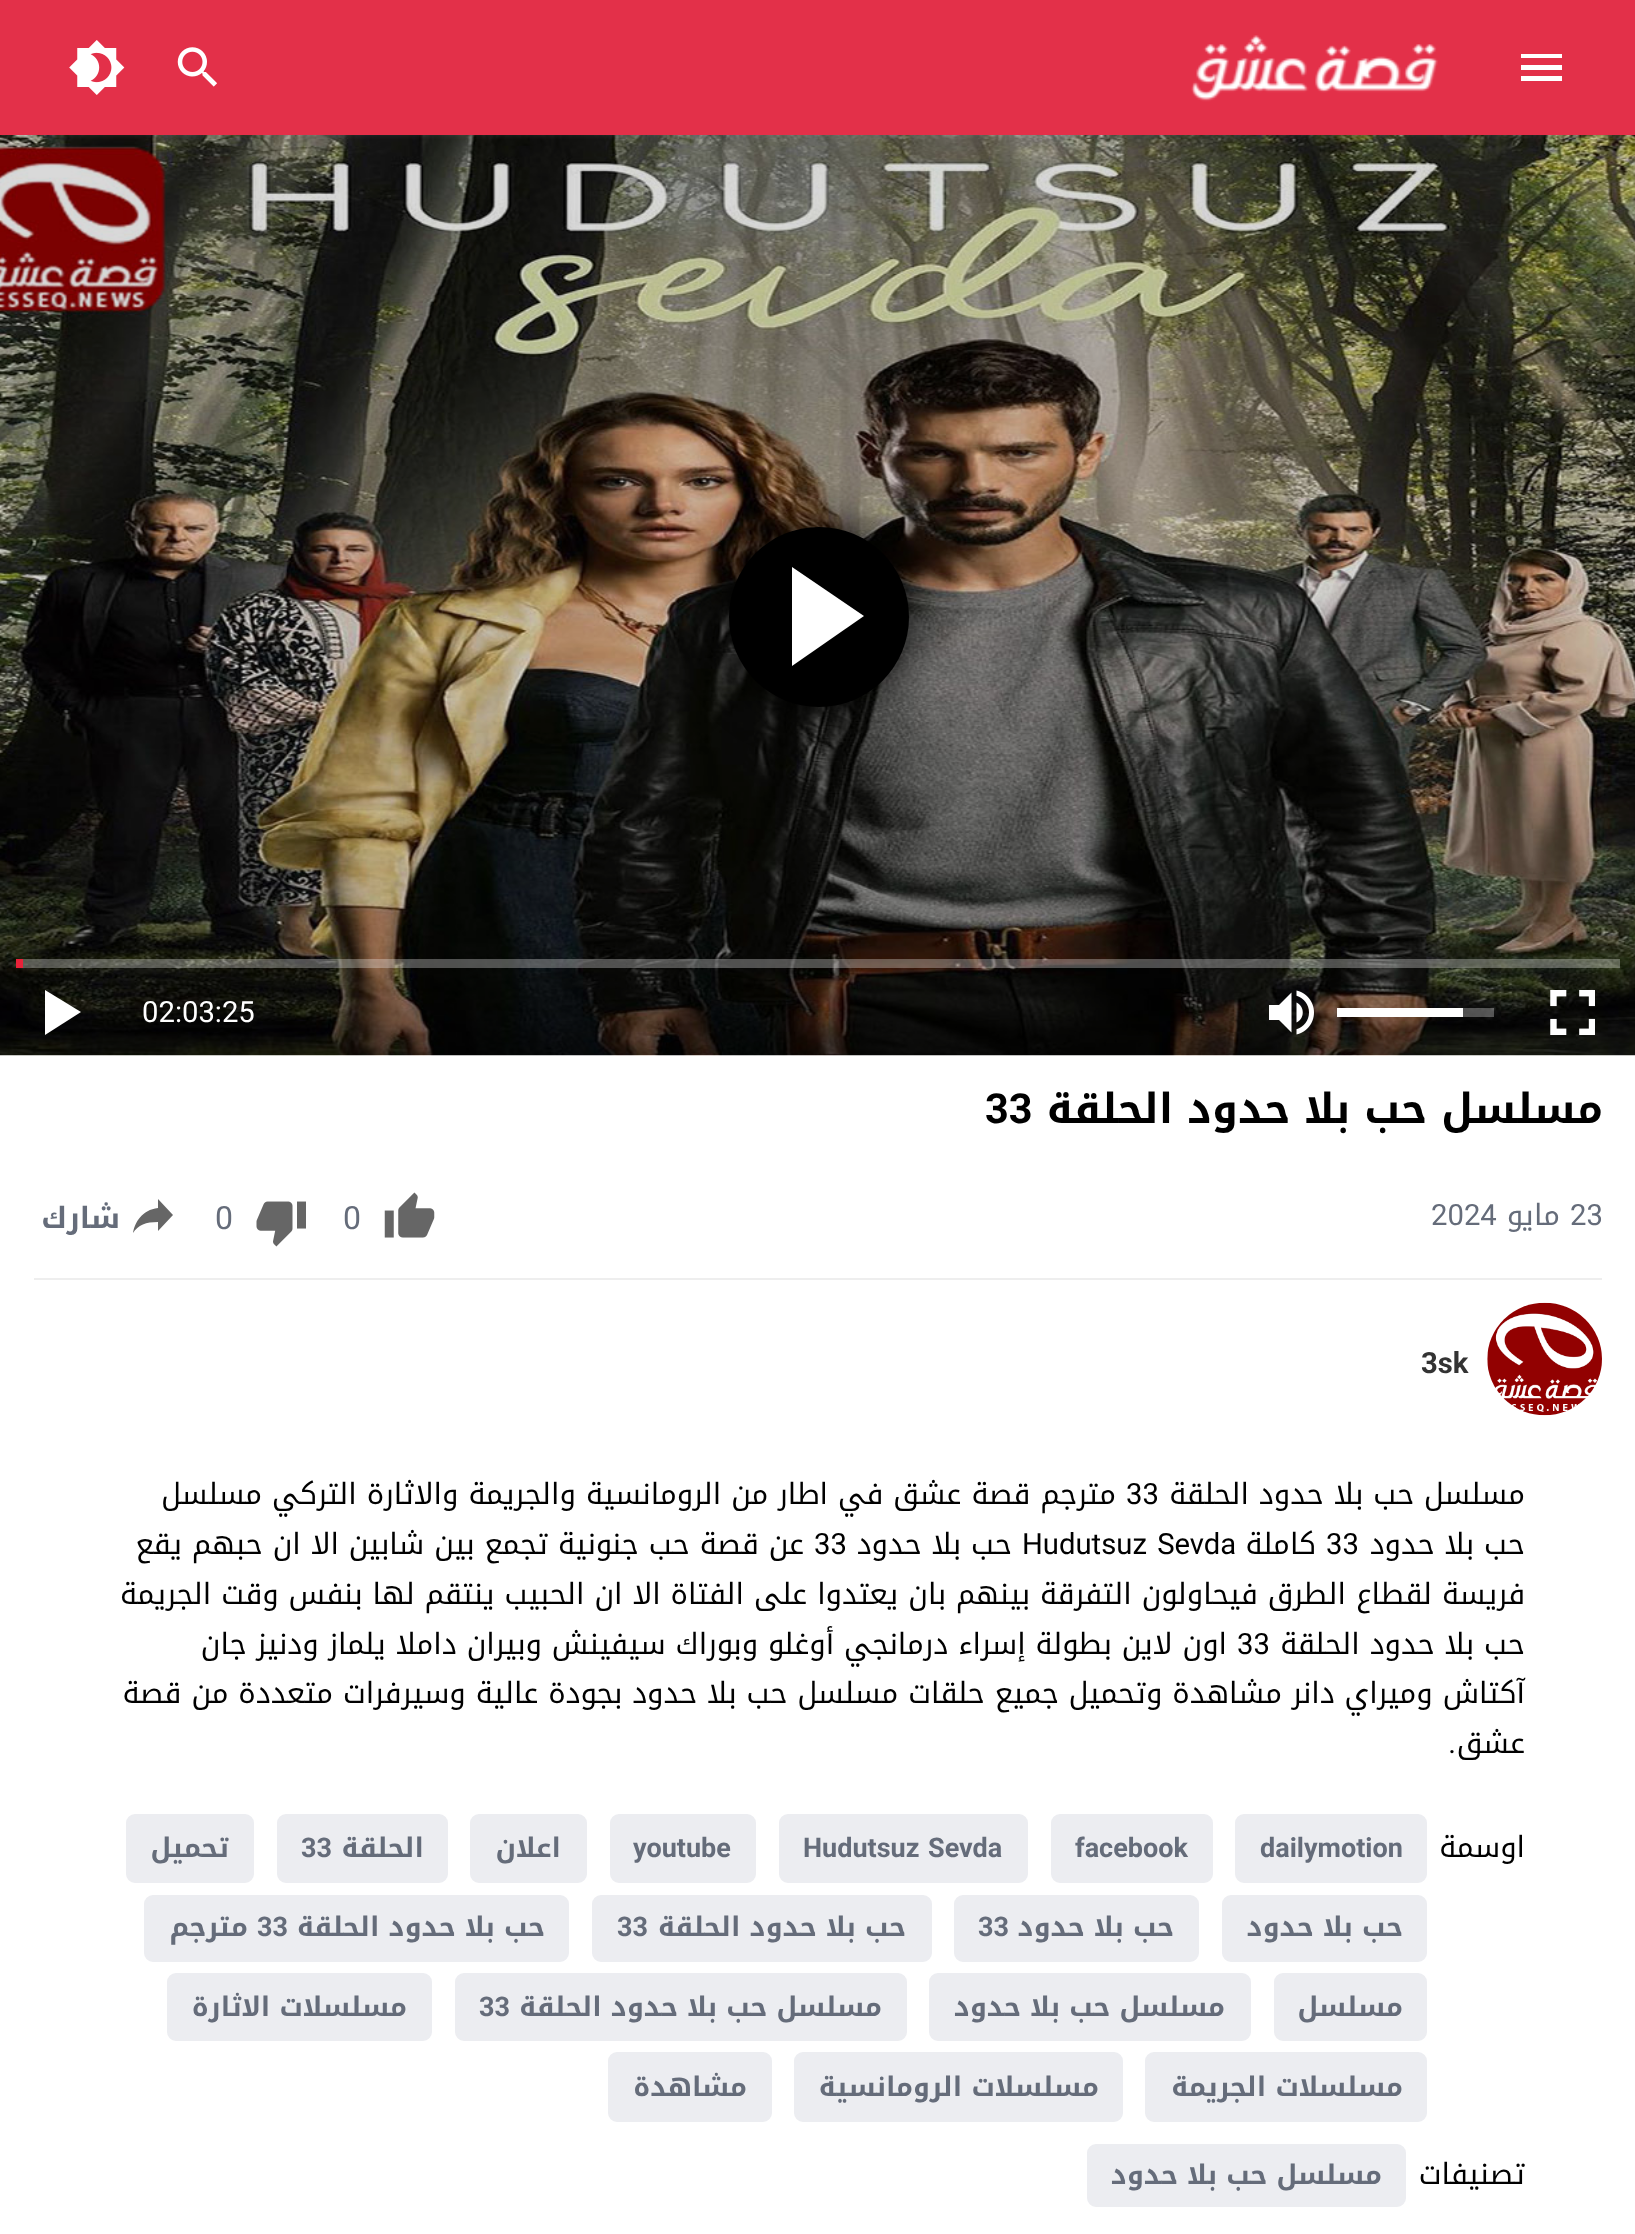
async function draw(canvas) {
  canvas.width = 1635;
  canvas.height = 2234;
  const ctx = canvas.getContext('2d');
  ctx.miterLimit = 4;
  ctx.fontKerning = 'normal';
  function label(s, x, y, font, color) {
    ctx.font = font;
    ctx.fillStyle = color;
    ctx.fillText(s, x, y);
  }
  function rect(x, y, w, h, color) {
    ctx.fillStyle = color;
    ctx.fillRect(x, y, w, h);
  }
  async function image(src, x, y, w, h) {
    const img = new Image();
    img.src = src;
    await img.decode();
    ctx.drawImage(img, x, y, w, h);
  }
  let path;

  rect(0, 0, 1635, 2234, '#fff');
  await image('assets/img4.png', 0, 135, 1635, 921);
  ctx.fillStyle = '#999';
  ctx.filter = 'blur(5.5px)';
  ctx.beginPath();
  ctx.rect(11, 16, 1614, 112);
  ctx.fill();
  ctx.filter = 'none';
  rect(0, 0, 1635, 135, '#e33049');
  ctx.fillStyle = '#fff';
  path = new Path2D('M1521 54H1562V58H1521V54M1521 65H1562V70H1521V65M1521 76H1562V81H1521Z');
  ctx.fill(path);
  await image('assets/img1.png', 1191, 35, 247, 67);
  await image('assets/img2.png', 177, 47, 40, 40);
  await image('assets/img3.png', 69, 40, 56, 55);
  ctx.fillStyle = '#000';
  ctx.filter = 'blur(22.5px)';
  ctx.beginPath();
  ctx.roundRect(729, 527, 180, 180, 90);
  ctx.fill();
  ctx.filter = 'none';
  ctx.beginPath();
  ctx.arc(819, 617, 90, 0, 2 * Math.PI);
  ctx.fill();
  ctx.fillStyle = '#fff';
  path = new Path2D('M792 666V567L864 616Z');
  ctx.fill(path);
  rect(23, 959, 1597, 9, '#ffffff4d');
  rect(16, 959, 7, 9, '#e82239');
  await image('assets/img5.png', 1550, 990, 45, 45);
  rect(1463, 1008, 31, 9, '#ffffff4d');
  rect(1337, 1008, 126, 9, '#fff');
  await image('assets/img6.png', 1269, 990, 45, 45);
  label('02:03:25', 142, 1022, '29.25px Roboto', '#fff');
  path = new Path2D('M45 990V1035L81 1012Z');
  ctx.fill(path);
  ctx.direction = 'rtl';
  label('مسلسل حب بلا حدود الحلقة', 1603, 1123, 'bold 41.4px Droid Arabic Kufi', '#000');
  ctx.direction = 'ltr';
  label('33', 985, 1123, 'bold 41.4px Roboto', '#000');
  rect(34, 1278, 1568, 2, '#eee');
  label('23', 1570, 1225, '29.25px Roboto', '#656c7a');
  ctx.direction = 'rtl';
  label('مايو', 1560, 1225, '29.25px Droid Arabic Kufi', '#656c7a');
  ctx.direction = 'ltr';
  label('2024', 1431, 1225, '29.25px Roboto', '#656c7a');
  await image('assets/img7.png', 384, 1192, 51, 46);
  label('0', 343, 1229, '32px Roboto', '#656c7a');
  await image('assets/img8.png', 256, 1201, 50, 46);
  label('0', 215, 1229, '32px Roboto', '#656c7a');
  ctx.fillStyle = '#666';
  path = new Path2D('M173 1215L158 1199V1208C142 1210 135 1222 133 1233C138 1225 146 1222 158 1222V1231Z');
  ctx.fill(path);
  ctx.direction = 'rtl';
  label('شارك', 120, 1228, 'bold 29.25px Droid Arabic Kufi', '#656c7a');
  await image('assets/img9.png', 1487, 1302, 115, 114);
  ctx.direction = 'ltr';
  label('3sk', 1421, 1373, 'bold 29.25px Roboto', '#333');
  ctx.direction = 'rtl';
  label('مسلسل حب بلا حدود الحلقة', 1525, 1504, '29.25px Droid Arabic Kufi', '#000');
  ctx.direction = 'ltr';
  label('33', 1126, 1504, '29.25px Roboto', '#000');
  ctx.direction = 'rtl';
  label('مترجم قصة عشق في اطار من الرومانسية والجريمة والاثارة التركي مسلسل', 1116, 1504, '29.25px Droid Arabic Kufi', '#000');
  label('حب بلا حدود', 1525, 1554, '29.25px Droid Arabic Kufi', '#000');
  ctx.direction = 'ltr';
  label('33', 1326, 1554, '29.25px Roboto', '#000');
  ctx.direction = 'rtl';
  label('كاملة', 1316, 1554, '29.25px Droid Arabic Kufi', '#000');
  ctx.wordSpacing = '3px';
  ctx.direction = 'ltr';
  label('Hudutsuz Sevda', 1022, 1554, '29.25px Roboto', '#000');
  ctx.wordSpacing = '0px';
  ctx.direction = 'rtl';
  label('حب بلا حدود', 1012, 1554, '29.25px Droid Arabic Kufi', '#000');
  ctx.direction = 'ltr';
  label('33', 814, 1554, '29.25px Roboto', '#000');
  ctx.direction = 'rtl';
  label('عن قصة حب جنونية تجمع بين شابين الا ان حبهم يقع', 804, 1554, '29.25px Droid Arabic Kufi', '#000');
  label('فريسة لقطاع الطرق فيحاولون التفرقة بينهم بان يعتدوا على الفتاة الا ان الحبيب ينتقم لها بنفس وقت الجريمة', 1525, 1604, '29.25px Droid Arabic Kufi', '#000');
  label('حب بلا حدود الحلقة', 1525, 1654, '29.25px Droid Arabic Kufi', '#000');
  ctx.direction = 'ltr';
  label('33', 1237, 1654, '29.25px Roboto', '#000');
  ctx.direction = 'rtl';
  label('اون لاين بطولة إسراء درمانجي أوغلو وبوراك سيفينش وبيران داملا يلماز ودنیز جان', 1227, 1654, '29.25px Droid Arabic Kufi', '#000');
  label('آکتاش وميراي دانر مشاهدة وتحميل جميع حلقات مسلسل حب بلا حدود بجودة عالية وسيرفرات متعددة من قصة', 1525, 1703, '29.25px Droid Arabic Kufi', '#000');
  label('عشق', 1525, 1753, '29.25px Droid Arabic Kufi', '#000');
  label('.', 1456, 1753, '29.25px Roboto', '#000');
  label('اوسمة', 1525, 1857, '29.25px Droid Arabic Kufi', '#000');
  ctx.fillStyle = '#ecedf1';
  ctx.beginPath();
  ctx.roundRect(1236, 1815, 190, 67, 8);
  ctx.fill();
  ctx.strokeStyle = '#ecedf1';
  ctx.lineWidth = 2;
  ctx.stroke();
  ctx.direction = 'ltr';
  label('dailymotion', 1260, 1857, 'bold 27px Roboto', '#656c7a');
  ctx.fillStyle = '#ecedf1';
  ctx.beginPath();
  ctx.roundRect(1052, 1815, 160, 67, 8);
  ctx.fill();
  ctx.stroke();
  label('facebook', 1075, 1857, 'bold 27px Roboto', '#656c7a');
  ctx.fillStyle = '#ecedf1';
  ctx.beginPath();
  ctx.roundRect(780, 1815, 247, 67, 8);
  ctx.fill();
  ctx.stroke();
  ctx.wordSpacing = '2px';
  label('Hudutsuz Sevda', 803, 1857, 'bold 27px Roboto', '#656c7a');
  ctx.fillStyle = '#ecedf1';
  ctx.beginPath();
  ctx.roundRect(611, 1815, 144, 67, 8);
  ctx.fill();
  ctx.stroke();
  ctx.wordSpacing = '0px';
  label('youtube', 633, 1857, 'bold 27px Roboto', '#656c7a');
  ctx.fillStyle = '#ecedf1';
  ctx.beginPath();
  ctx.roundRect(471, 1815, 115, 67, 8);
  ctx.fill();
  ctx.stroke();
  ctx.direction = 'rtl';
  label('اعلان', 561, 1857, 'bold 27px Droid Arabic Kufi', '#656c7a');
  ctx.fillStyle = '#ecedf1';
  ctx.beginPath();
  ctx.roundRect(278, 1815, 169, 67, 8);
  ctx.fill();
  ctx.stroke();
  label('الحلقة', 424, 1857, 'bold 27px Droid Arabic Kufi', '#656c7a');
  ctx.direction = 'ltr';
  label('33', 301, 1857, 'bold 27px Roboto', '#656c7a');
  ctx.fillStyle = '#ecedf1';
  ctx.beginPath();
  ctx.roundRect(127, 1815, 126, 67, 8);
  ctx.fill();
  ctx.stroke();
  ctx.direction = 'rtl';
  label('تحميل', 229, 1857, 'bold 27px Droid Arabic Kufi', '#656c7a');
  ctx.fillStyle = '#ecedf1';
  ctx.beginPath();
  ctx.roundRect(1223, 1896, 203, 65, 8);
  ctx.fill();
  ctx.stroke();
  label('حب بلا حدود', 1403, 1936, 'bold 27px Droid Arabic Kufi', '#656c7a');
  ctx.fillStyle = '#ecedf1';
  ctx.beginPath();
  ctx.roundRect(955, 1896, 243, 65, 8);
  ctx.fill();
  ctx.stroke();
  label('حب بلا حدود', 1174, 1936, 'bold 27px Droid Arabic Kufi', '#656c7a');
  ctx.direction = 'ltr';
  label('33', 978, 1936, 'bold 27px Roboto', '#656c7a');
  ctx.fillStyle = '#ecedf1';
  ctx.beginPath();
  ctx.roundRect(593, 1896, 338, 65, 8);
  ctx.fill();
  ctx.stroke();
  ctx.direction = 'rtl';
  label('حب بلا حدود الحلقة', 906, 1936, 'bold 27px Droid Arabic Kufi', '#656c7a');
  ctx.direction = 'ltr';
  label('33', 617, 1936, 'bold 27px Roboto', '#656c7a');
  ctx.fillStyle = '#ecedf1';
  ctx.beginPath();
  ctx.roundRect(145, 1896, 423, 65, 8);
  ctx.fill();
  ctx.stroke();
  ctx.direction = 'rtl';
  label('حب بلا حدود الحلقة', 545, 1936, 'bold 27px Droid Arabic Kufi', '#656c7a');
  ctx.direction = 'ltr';
  label('33', 257, 1936, 'bold 27px Roboto', '#656c7a');
  ctx.direction = 'rtl';
  label('مترجم', 248, 1936, 'bold 27px Droid Arabic Kufi', '#656c7a');
  ctx.fillStyle = '#ecedf1';
  ctx.beginPath();
  ctx.roundRect(1275, 1974, 151, 66, 8);
  ctx.fill();
  ctx.stroke();
  label('مسلسل', 1403, 2016, 'bold 27px Droid Arabic Kufi', '#656c7a');
  ctx.fillStyle = '#ecedf1';
  ctx.beginPath();
  ctx.roundRect(930, 1974, 320, 66, 8);
  ctx.fill();
  ctx.stroke();
  label('مسلسل حب بلا حدود', 1225, 2016, 'bold 27px Droid Arabic Kufi', '#656c7a');
  ctx.fillStyle = '#ecedf1';
  ctx.beginPath();
  ctx.roundRect(456, 1974, 450, 66, 8);
  ctx.fill();
  ctx.stroke();
  label('مسلسل حب بلا حدود الحلقة', 882, 2016, 'bold 27px Droid Arabic Kufi', '#656c7a');
  ctx.direction = 'ltr';
  label('33', 479, 2016, 'bold 27px Roboto', '#656c7a');
  ctx.fillStyle = '#ecedf1';
  ctx.beginPath();
  ctx.roundRect(168, 1974, 263, 66, 8);
  ctx.fill();
  ctx.stroke();
  ctx.direction = 'rtl';
  label('مسلسلات الاثارة', 407, 2016, 'bold 27px Droid Arabic Kufi', '#656c7a');
  ctx.fillStyle = '#ecedf1';
  ctx.beginPath();
  ctx.roundRect(1146, 2053, 280, 68, 8);
  ctx.fill();
  ctx.stroke();
  label('مسلسلات الجريمة', 1403, 2096, 'bold 27px Droid Arabic Kufi', '#656c7a');
  ctx.fillStyle = '#ecedf1';
  ctx.beginPath();
  ctx.roundRect(795, 2053, 327, 68, 8);
  ctx.fill();
  ctx.stroke();
  label('مسلسلات الرومانسية', 1099, 2096, 'bold 27px Droid Arabic Kufi', '#656c7a');
  ctx.fillStyle = '#ecedf1';
  ctx.beginPath();
  ctx.roundRect(609, 2053, 162, 68, 8);
  ctx.fill();
  ctx.stroke();
  label('مشاهدة', 747, 2096, 'bold 27px Droid Arabic Kufi', '#656c7a');
  label('تصنيفات', 1525, 2184, '29.25px Droid Arabic Kufi', '#000');
  ctx.fillStyle = '#ecedf1';
  ctx.beginPath();
  ctx.roundRect(1088, 2145, 317, 61, 8);
  ctx.fill();
  ctx.stroke();
  label('مسلسل حب بلا حدود', 1382, 2184, 'bold 27px Droid Arabic Kufi', '#656c7a');
}

draw(document.querySelector('canvas'));
